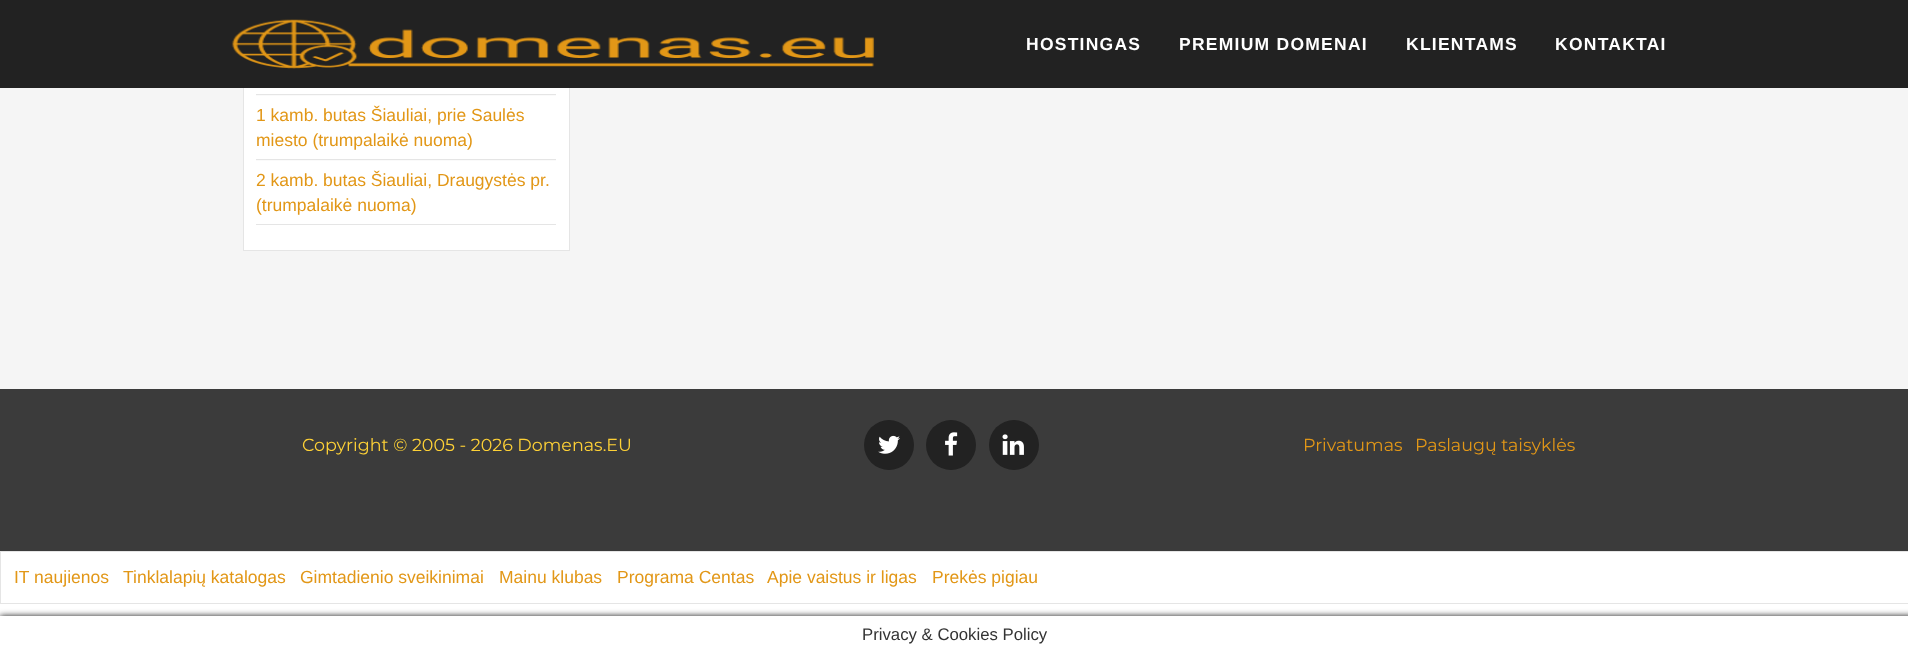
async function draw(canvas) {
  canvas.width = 1908;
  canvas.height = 652;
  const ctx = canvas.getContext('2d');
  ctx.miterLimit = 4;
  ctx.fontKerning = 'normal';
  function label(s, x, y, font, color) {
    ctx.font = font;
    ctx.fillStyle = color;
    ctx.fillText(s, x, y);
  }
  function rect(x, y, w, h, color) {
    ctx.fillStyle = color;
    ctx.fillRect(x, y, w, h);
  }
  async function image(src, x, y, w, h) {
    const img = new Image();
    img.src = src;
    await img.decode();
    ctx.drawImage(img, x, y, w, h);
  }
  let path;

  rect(0, 0, 1908, 652, '#fff');
  rect(0, 88, 1908, 301, '#f5f5f5');
  rect(244, 88, 325, 162, '#fff');
  ctx.strokeStyle = '#e5e5e5';
  ctx.strokeRect(243.5, -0.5, 326, 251);
  rect(0, 0, 1908, 88, '#222');
  await image('assets/img1.png', 231, 19, 644, 50);
  ctx.letterSpacing = '1.25px';
  label('HOSTINGAS', 1026, 50, 'bold 17.5px Liberation Sans', '#fff');
  label('PREMIUM DOMENAI', 1179, 50, 'bold 17.5px Liberation Sans', '#fff');
  label('KLIENTAMS', 1406, 50, 'bold 17.5px Liberation Sans', '#fff');
  label('KONTAKTAI', 1555, 50, 'bold 17.5px Liberation Sans', '#fff');
  rect(256, 94, 300, 1, '#e5e5e5');
  rect(256, 95, 300, 1, '#fafafa');
  rect(256, 159, 300, 1, '#e5e5e5');
  ctx.letterSpacing = '0px';
  label('1 kamb. butas Šiauliai, prie Saulės', 256, 121, '17.5px Liberation Sans', '#e29717');
  label('miesto (trumpalaikė nuoma)', 256, 146, '17.5px Liberation Sans', '#e29717');
  rect(256, 160, 300, 1, '#fafafa');
  rect(256, 224, 300, 1, '#e5e5e5');
  label('2 kamb. butas Šiauliai, Draugystės pr.', 256, 186, '17.5px Liberation Sans', '#e29717');
  label('(trumpalaikė nuoma)', 256, 211, '17.5px Liberation Sans', '#e29717');
  rect(0, 389, 1908, 162, '#3b3b3b');
  label('Copyright © 2005 - 2026 Domenas.EU', 302, 451, '17.5px Montserrat', '#fed136');
  ctx.fillStyle = '#222';
  ctx.beginPath();
  ctx.arc(889, 445, 25, 0, 2 * Math.PI);
  ctx.fill();
  await image('assets/img2.png', 878, 435, 22, 19);
  ctx.beginPath();
  ctx.arc(951, 445, 25, 0, 2 * Math.PI);
  ctx.fill();
  await image('assets/img3.png', 945, 432, 13, 24);
  ctx.beginPath();
  ctx.arc(1014, 445, 25, 0, 2 * Math.PI);
  ctx.fill();
  await image('assets/img4.png', 1002, 434, 22, 21);
  label('Privatumas', 1303, 451, '17.5px Montserrat', '#e29717');
  label('Paslaugų taisyklės', 1415, 451, '17.5px Montserrat', '#e29717');
  ctx.strokeRect(0.5, 551.5, 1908, 52);
  label('IT naujienos', 14, 583, '17.5px Liberation Sans', '#e29717');
  label('Tinklalapių katalogas', 123, 583, '17.5px Liberation Sans', '#e29717');
  label('Gimtadienio sveikinimai', 300, 583, '17.5px Liberation Sans', '#e29717');
  label('Mainu klubas', 499, 583, '17.5px Liberation Sans', '#e29717');
  label('Programa Centas', 617, 583, '17.5px Liberation Sans', '#e29717');
  label('Apie vaistus ir ligas', 767, 583, '17.5px Liberation Sans', '#e29717');
  label('Prekės pigiau', 932, 583, '17.5px Liberation Sans', '#e29717');
  ctx.save();
  path = new Path2D('M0 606H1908V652H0ZM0 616H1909V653H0Z');
  ctx.clip(path, 'evenodd');
  ctx.fillStyle = '#161616';
  ctx.filter = 'blur(3px)';
  ctx.beginPath();
  ctx.rect(0, 616, 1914, 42);
  ctx.fill();
  ctx.filter = 'none';
  ctx.restore();
  label('Privacy & Cookies Policy', 862, 640, '16.75px Liberation Sans', '#333');
}

draw(document.querySelector('canvas'));
